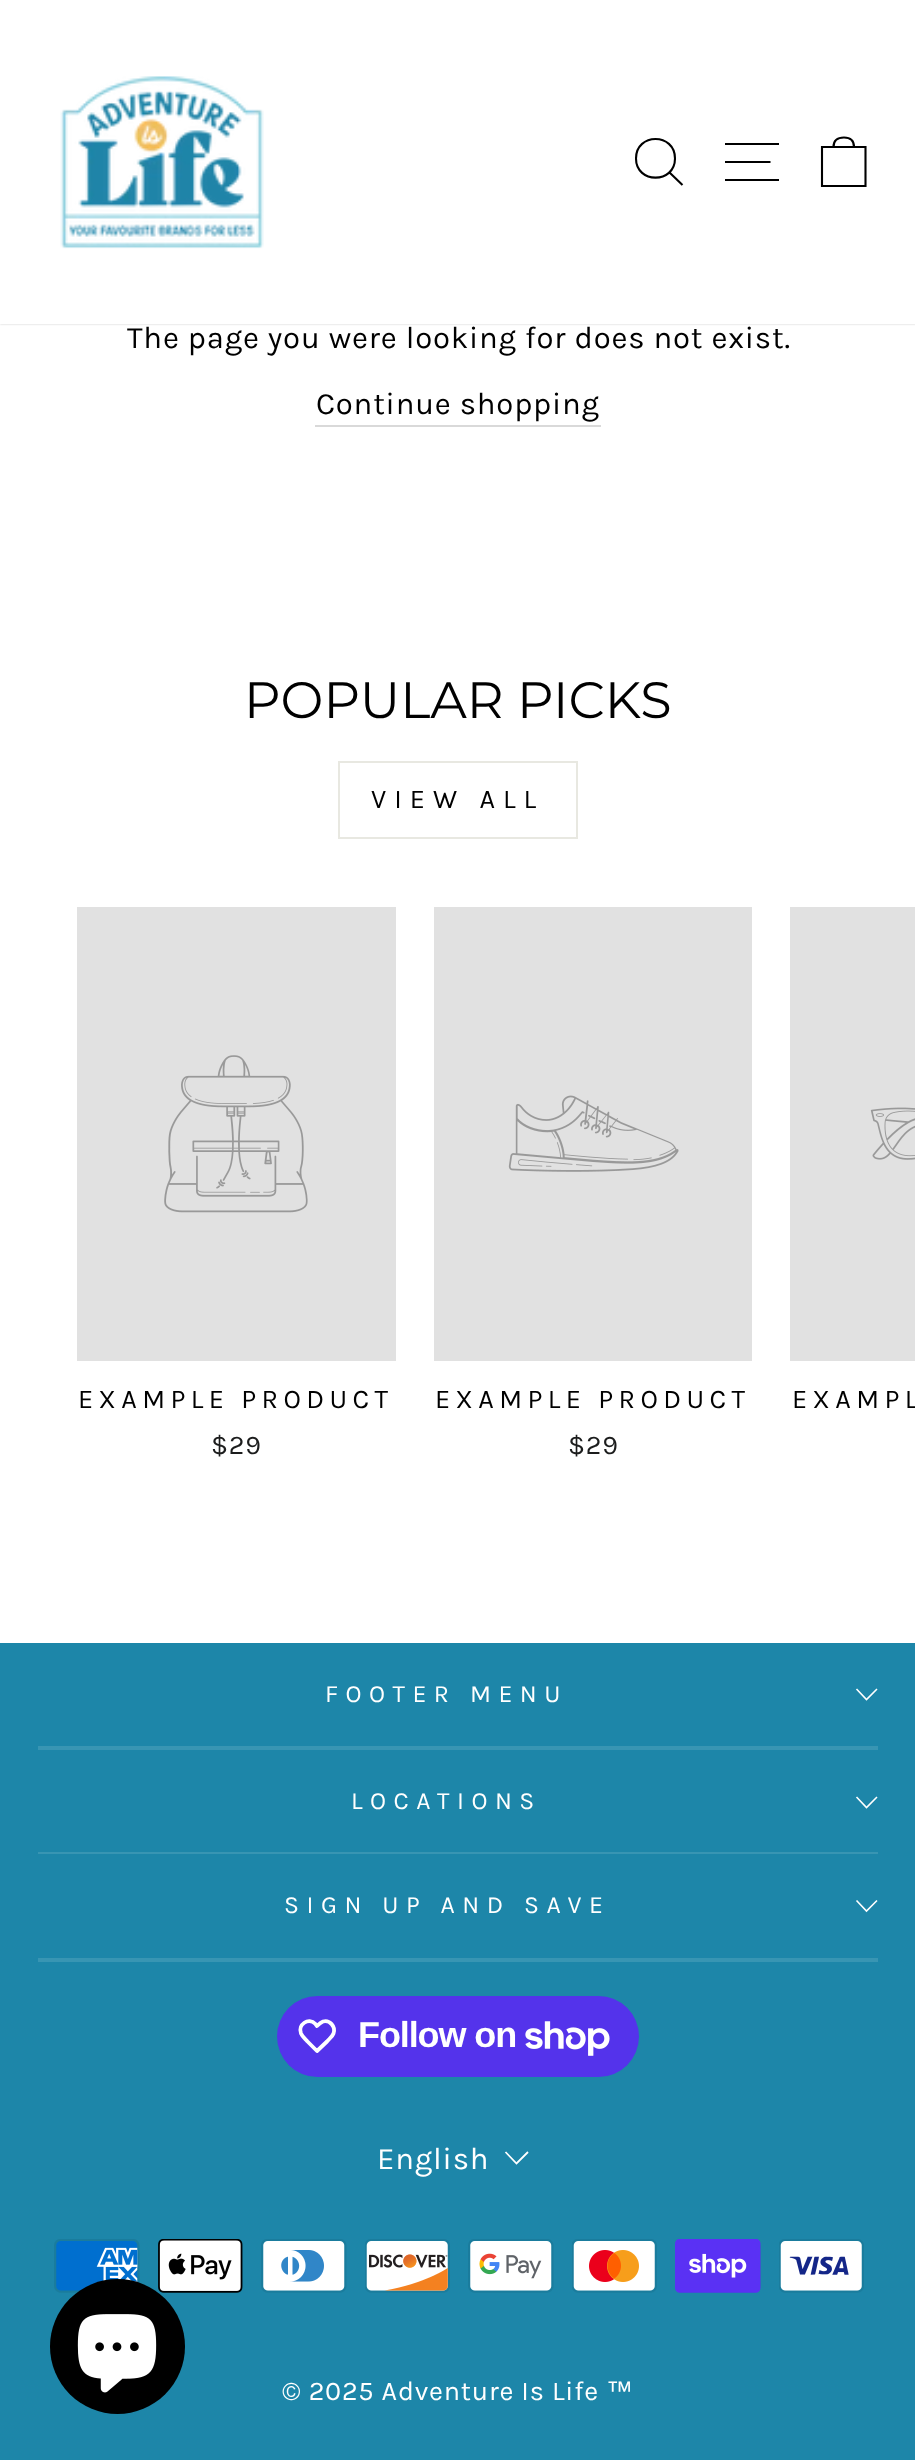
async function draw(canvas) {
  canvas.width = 915;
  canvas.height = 2460;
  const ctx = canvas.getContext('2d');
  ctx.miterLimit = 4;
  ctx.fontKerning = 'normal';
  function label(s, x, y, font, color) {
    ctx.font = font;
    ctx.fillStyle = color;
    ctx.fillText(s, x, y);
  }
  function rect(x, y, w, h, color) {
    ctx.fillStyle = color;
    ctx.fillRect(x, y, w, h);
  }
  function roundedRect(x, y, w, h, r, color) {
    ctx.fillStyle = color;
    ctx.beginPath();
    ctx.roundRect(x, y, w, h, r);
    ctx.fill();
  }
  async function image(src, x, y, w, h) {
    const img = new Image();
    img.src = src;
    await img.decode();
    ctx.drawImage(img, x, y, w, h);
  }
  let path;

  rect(0, 0, 915, 2460, '#fff');
  ctx.fillStyle = '#00000033';
  ctx.filter = 'blur(1px)';
  ctx.beginPath();
  ctx.rect(0, 0, 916, 324);
  ctx.fill();
  ctx.filter = 'none';
  rect(0, 0, 915, 324, '#fff');
  await image('assets/img1.png', 60, 76, 204, 173);
  path = new Path2D('M675 158.5C675 184 636 184 636 158.5C636 132.5 675 132.5 675 158.5ZM682.5 185L669.5 172.5');
  ctx.strokeStyle = '#000';
  ctx.lineWidth = 2.1;
  ctx.stroke(path);
  path = new Path2D('M725 144H779M725 162H770.5M725 180H779');
  ctx.stroke(path);
  path = new Path2D('M822 147H865.5V186H822ZM833.5 147C833.5 139.5 838 137.5 844 137.5C849.5 137.5 854 139.5 854 147');
  ctx.stroke(path);
  ctx.letterSpacing = '0.8px';
  label('The page you were looking for does not exist.', 127, 348, '31.05px Karla', '#000');
  rect(315, 425, 286, 2, '#d9d9d9');
  label('Continue shopping', 316, 414, '31.05px Karla', '#000');
  ctx.letterSpacing = '0px';
  label('POPULAR PICKS', 244, 718, '51px Montserrat', '#000');
  ctx.strokeStyle = '#e8e8e1';
  ctx.lineWidth = 2;
  ctx.strokeRect(339, 762, 238, 76);
  ctx.letterSpacing = '8px';
  label('VIEW ALL', 371, 808, '27px Karla', '#000');
  rect(77, 907, 319, 454, '#e1e1e1');
  await image('assets/img2.png', 164, 1055, 144, 158);
  ctx.letterSpacing = '5.4px';
  label('EXAMPLE PRODUCT', 78, 1408, '27px Karla', '#000');
  ctx.letterSpacing = '0.8px';
  label('$29', 211, 1454, '27px Karla', '#1c1d1d');
  rect(434, 907, 318, 454, '#e1e1e1');
  await image('assets/img3.png', 508, 1095, 171, 77);
  ctx.letterSpacing = '5.4px';
  label('EXAMPLE PRODUCT', 435, 1408, '27px Karla', '#000');
  ctx.letterSpacing = '0.8px';
  label('$29', 568, 1454, '27px Karla', '#1c1d1d');
  rect(790, 907, 125, 454, '#e1e1e1');
  await image('assets/img4.png', 870, 1107, 45, 53);
  ctx.letterSpacing = '5.4px';
  label('EXAMPL', 792, 1408, '27px Karla', '#000');
  rect(0, 1643, 915, 817, '#1d86a9');
  ctx.letterSpacing = '7.5px';
  label('FOOTER MENU', 325, 1702, '24.8px Karla', '#fff');
  path = new Path2D('M856.5 1689L866.5 1699.5L877 1689');
  ctx.strokeStyle = '#fff';
  ctx.lineWidth = 1.6;
  ctx.stroke(path);
  rect(38, 1746, 840, 4, '#3895b3');
  label('LOCATIONS', 351, 1809, '24.8px Karla', '#fff');
  path = new Path2D('M856.5 1797L866.5 1807.5L877 1797');
  ctx.stroke(path);
  rect(38, 1852, 840, 2, '#3895b3');
  label('SIGN UP AND SAVE', 284, 1913, '24.8px Karla', '#fff');
  path = new Path2D('M856.5 1900.5L866.5 1911L877 1900.5');
  ctx.stroke(path);
  rect(38, 1958, 840, 4, '#3895b3');
  roundedRect(277, 1996, 362, 81, 40.5, '#5433eb');
  path = new Path2D('M315.5 2024L317 2026C319 2024 320.5 2022.5 323 2021.5C329.5 2019.5 336 2026.5 333.5 2033.5C332.5 2036.5 329 2039 327 2041.5L317 2051L307.5 2041.5C305.5 2039 302.5 2037 301 2033.5C297.5 2024.5 308.5 2017 315.5 2024Z');
  ctx.lineWidth = 3.8;
  ctx.lineJoin = 'round';
  ctx.stroke(path);
  ctx.letterSpacing = '-1.1px';
  label('Follow on', 358, 2047, 'bold 36px Liberation Sans', '#fff');
  await image('assets/img5.png', 525, 2021, 85, 35);
  ctx.letterSpacing = '0.8px';
  label('English', 377, 2169, '31.05px Karla', '#fff');
  path = new Path2D('M505.5 2152L516.5 2163.5L528 2152');
  ctx.lineWidth = 1.8;
  ctx.lineJoin = 'miter';
  ctx.stroke(path);
  await image('assets/img6.png', 54, 2239, 86, 54);
  await image('assets/img7.png', 158, 2239, 85, 54);
  await image('assets/img8.png', 261, 2239, 86, 54);
  await image('assets/img9.png', 365, 2239, 85, 54);
  await image('assets/img10.png', 468, 2239, 86, 54);
  await image('assets/img11.png', 572, 2239, 85, 54);
  await image('assets/img12.png', 675, 2239, 86, 54);
  await image('assets/img13.png', 779, 2239, 85, 54);
  label('© 2025 Adventure Is Life', 282, 2400, '27px Karla', '#fff');
  label('™', 606, 2400, '27px Liberation Sans', '#fff');
  ctx.fillStyle = '#000';
  ctx.beginPath();
  ctx.arc(117.5, 2346.5, 67.5, 0, 2 * Math.PI);
  ctx.fill();
  await image('assets/img14.png', 77, 2314, 80, 79);
}

draw(document.querySelector('canvas'));
